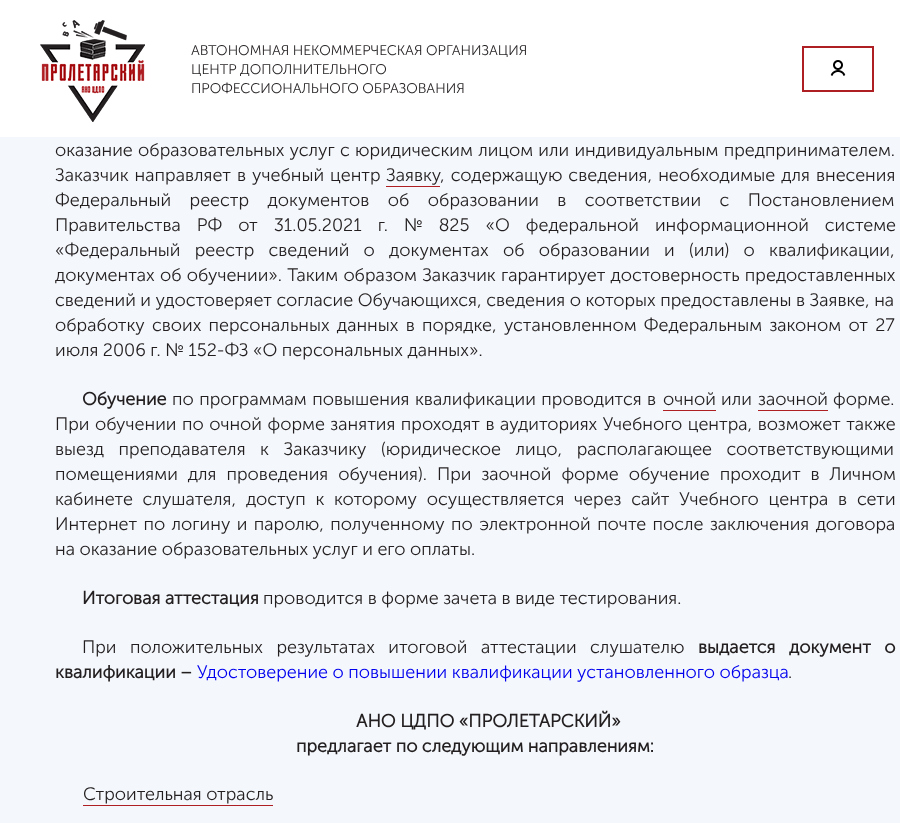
async function draw(canvas) {
  canvas.width = 900;
  canvas.height = 823;
  const ctx = canvas.getContext('2d');
  ctx.miterLimit = 4;
  ctx.fontKerning = 'normal';
  function label(s, x, y, font, color) {
    ctx.font = font;
    ctx.fillStyle = color;
    ctx.fillText(s, x, y);
  }
  function rect(x, y, w, h, color) {
    ctx.fillStyle = color;
    ctx.fillRect(x, y, w, h);
  }
  async function image(src, x, y, w, h) {
    const img = new Image();
    img.src = src;
    await img.decode();
    ctx.drawImage(img, x, y, w, h);
  }

  rect(0, 0, 900, 823, '#f4f7fb');
  rect(0, 0, 900, 137, '#fff');
  await image('assets/img1.png', 40, 20, 105, 102);
  label('АВТОНОМНАЯ НЕКОММЕРЧЕСКАЯ ОРГАНИЗАЦИЯ', 191, 55, '300 14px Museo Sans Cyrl', '#231f20');
  label('ЦЕНТР ДОПОЛНИТЕЛЬНОГО', 191, 74, '300 14px Museo Sans Cyrl', '#231f20');
  label('ПРОФЕССИОНАЛЬНОГО ОБРАЗОВАНИЯ', 191, 93, '300 14px Museo Sans Cyrl', '#231f20');
  await image('assets/img2.png', 830, 60, 16, 16);
  ctx.strokeStyle = '#ae1f23';
  ctx.lineWidth = 2;
  ctx.strokeRect(803, 47, 70, 44);
  ctx.wordSpacing = '0.75px';
  label('оказание образовательных услуг с юридическим лицом или индивидуальным предпринимателем.', 55, 156, '300 18px Museo Sans Cyrl', '#231f20');
  ctx.wordSpacing = '1.5px';
  label('Заказчик направляет в учебный центр', 55, 181, '300 18px Museo Sans Cyrl', '#231f20');
  ctx.wordSpacing = '0px';
  label('Заявку', 386, 181, '300 18px Museo Sans Cyrl', '#231f20');
  rect(386, 186, 54, 1, '#ae1f23');
  ctx.wordSpacing = '1.5px';
  label(', содержащую сведения, необходимые для внесения', 440, 181, '300 18px Museo Sans Cyrl', '#231f20');
  ctx.wordSpacing = '14px';
  label('Федеральный реестр документов об образовании в соответствии с Постановлением', 55, 206, '300 18px Museo Sans Cyrl', '#231f20');
  ctx.wordSpacing = '11.5px';
  label('Правительства РФ от 31.05.2021 г. № 825 «О федеральной информационной системе', 55, 231, '300 18px Museo Sans Cyrl', '#231f20');
  ctx.wordSpacing = '9.75px';
  label('«Федеральный реестр сведений о документах об образовании и (или) о квалификации,', 55, 256, '300 18px Museo Sans Cyrl', '#231f20');
  ctx.wordSpacing = '0.75px';
  label('документах об обучении». Таким образом Заказчик гарантирует достоверность предоставленных', 55, 281, '300 18px Museo Sans Cyrl', '#231f20');
  ctx.wordSpacing = '0px';
  label('сведений и удостоверяет согласие Обучающихся, сведения о которых предоставлены в Заявке, на', 55, 306, '300 18px Museo Sans Cyrl', '#231f20');
  ctx.wordSpacing = '2.75px';
  label('обработку своих персональных данных в порядке, установленном Федеральным законом от 27', 55, 331, '300 18px Museo Sans Cyrl', '#231f20');
  ctx.wordSpacing = '0px';
  label('июля 2006 г. № 152-ФЗ «О персональных данных».', 55, 356, '300 18px Museo Sans Cyrl', '#231f20');
  label('Обучение', 82, 405, 'bold 18px Museo Sans Cyrl', '#231f20');
  ctx.wordSpacing = '1px';
  label('по программам повышения квалификации проводится в', 172, 405, '300 18px Museo Sans Cyrl', '#231f20');
  ctx.wordSpacing = '0px';
  label('очной', 663, 405, '300 18px Museo Sans Cyrl', '#231f20');
  rect(663, 410, 53, 1, '#ae1f23');
  label('или', 721, 405, '300 18px Museo Sans Cyrl', '#231f20');
  label('заочной', 758, 405, '300 18px Museo Sans Cyrl', '#231f20');
  rect(758, 410, 70, 1, '#ae1f23');
  label('форме.', 833, 405, '300 18px Museo Sans Cyrl', '#231f20');
  ctx.wordSpacing = '1px';
  label('При обучении по очной форме занятия проходят в аудиториях Учебного центра, возможет также', 55, 430, '300 18px Museo Sans Cyrl', '#231f20');
  ctx.wordSpacing = '10px';
  label('выезд преподавателя к Заказчику (юридическое лицо, располагающее соответствующими', 55, 455, '300 18px Museo Sans Cyrl', '#231f20');
  ctx.wordSpacing = '5.5px';
  label('помещениями для проведения обучения). При заочной форме обучение проходит в Личном', 55, 480, '300 18px Museo Sans Cyrl', '#231f20');
  ctx.wordSpacing = '5.25px';
  label('кабинете слушателя, доступ к которому осуществляется через сайт Учебного центра в сети', 55, 505, '300 18px Museo Sans Cyrl', '#231f20');
  ctx.wordSpacing = '1.9px';
  label('Интернет по логину и паролю, полученному по электронной почте после заключения договора', 55, 530, '300 18px Museo Sans Cyrl', '#231f20');
  ctx.wordSpacing = '0px';
  label('на оказание образовательных услуг и его оплаты.', 55, 555, '300 18px Museo Sans Cyrl', '#231f20');
  label('Итоговая аттестация', 82, 604, 'bold 18px Museo Sans Cyrl', '#231f20');
  label('проводится в форме зачета в виде тестирования.', 263, 604, '300 18px Museo Sans Cyrl', '#231f20');
  ctx.wordSpacing = '9px';
  label('При положительных результатах итоговой аттестации слушателю', 82, 653, '300 18px Museo Sans Cyrl', '#231f20');
  ctx.wordSpacing = '0px';
  label('выдается', 698, 653, 'bold 18px Museo Sans Cyrl', '#231f20');
  ctx.wordSpacing = '9px';
  label('документ о', 789, 653, 'bold 18px Museo Sans Cyrl', '#231f20');
  ctx.wordSpacing = '0px';
  label('квалификации –', 55, 678, 'bold 18px Museo Sans Cyrl', '#231f20');
  label('Удостоверение о повышении квалификации установленного образца', 197, 678, '300 18px Museo Sans Cyrl', '#00e');
  label('.', 788, 678, '300 18px Museo Sans Cyrl', '#231f20');
  label('АНО ЦДПО «ПРОЛЕТАРСКИЙ»', 356, 727, 'bold 18px Museo Sans Cyrl', '#231f20');
  label('предлагает по следующим направлениям:', 296, 752, 'bold 18px Museo Sans Cyrl', '#231f20');
  label('Строительная отрасль', 83, 800, '300 18px Museo Sans Cyrl', '#231f20');
  rect(83, 805, 190, 1, '#ae1f23');
}

draw(document.querySelector('canvas'));
